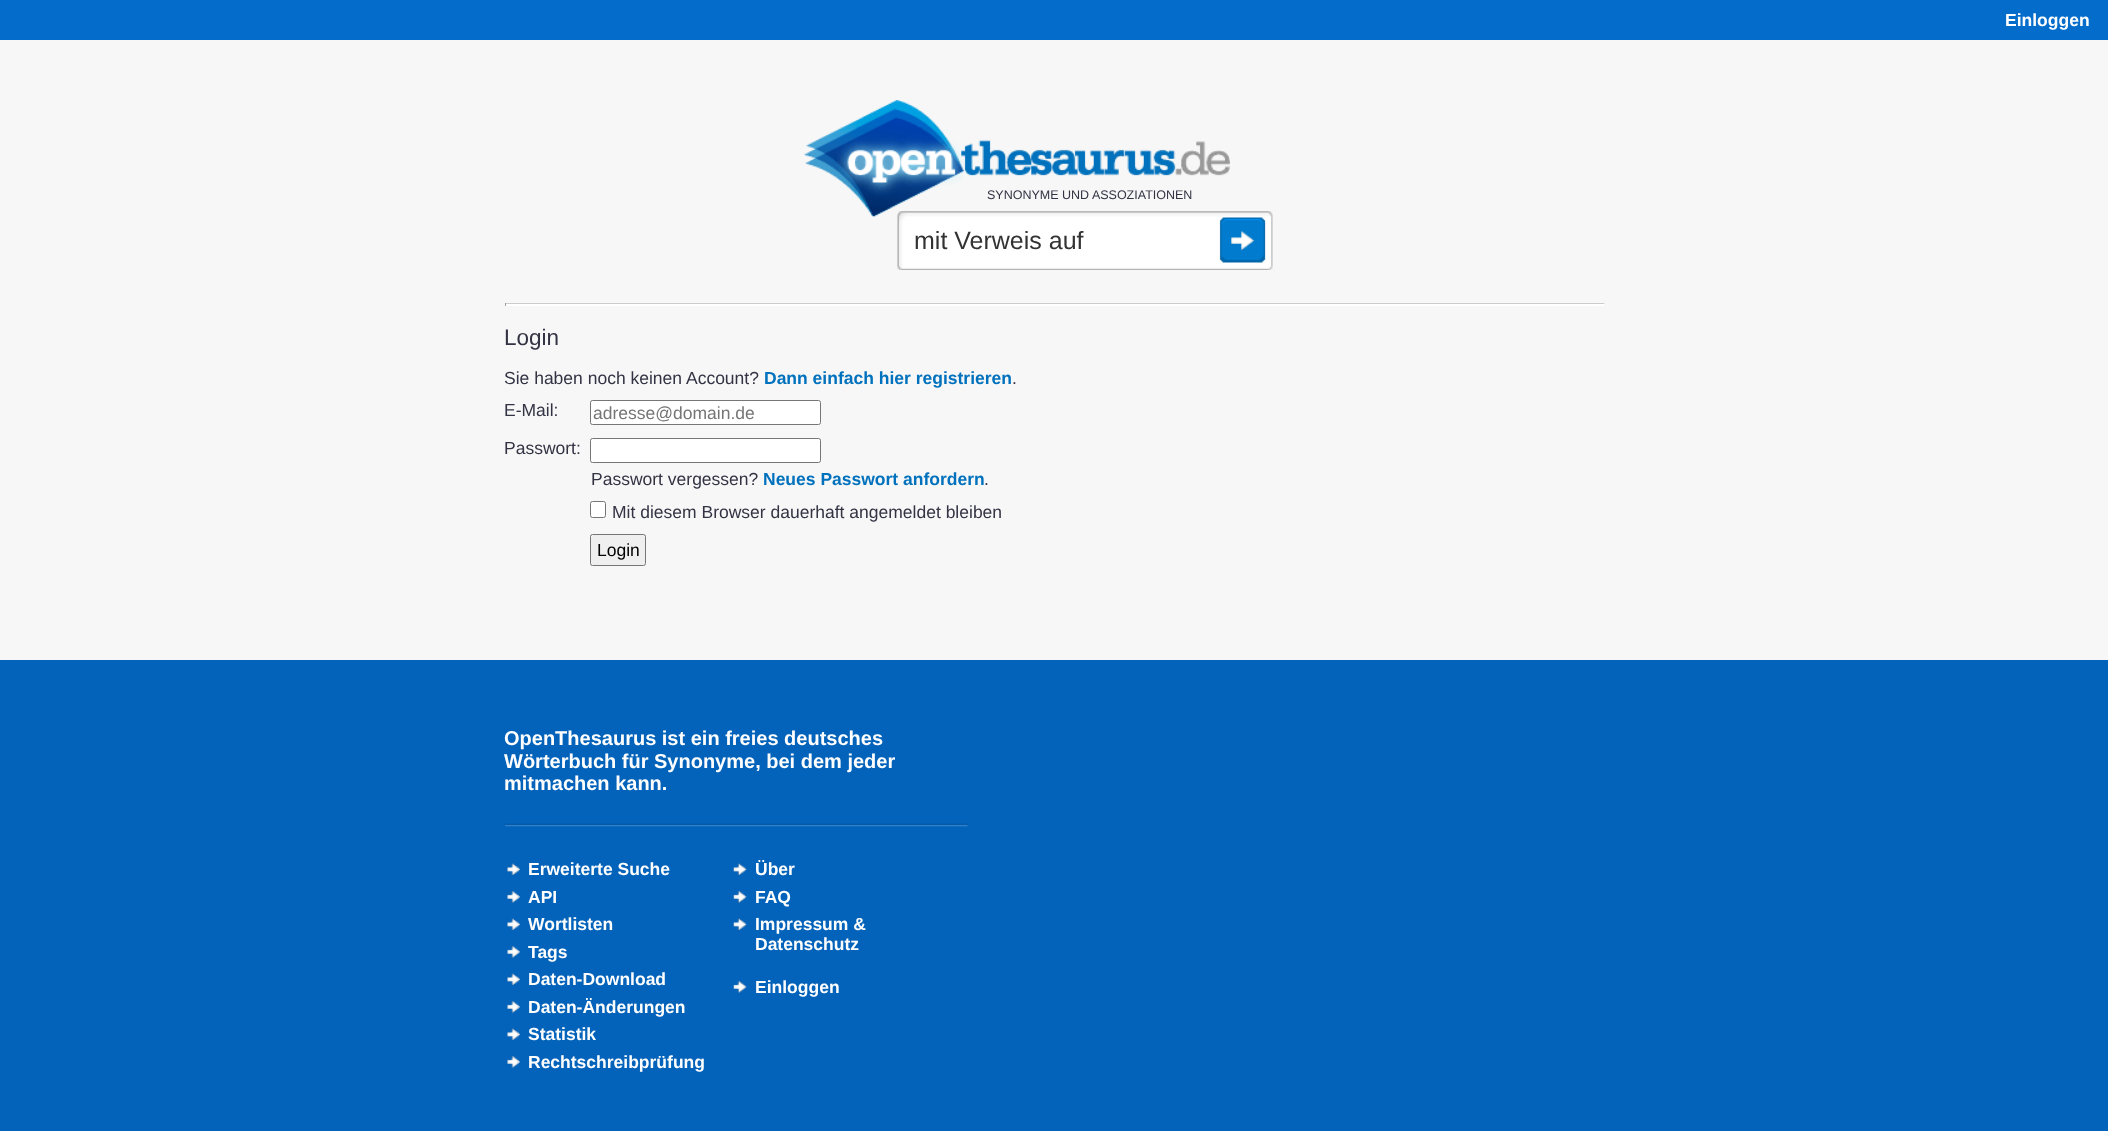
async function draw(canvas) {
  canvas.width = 2108;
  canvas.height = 1131;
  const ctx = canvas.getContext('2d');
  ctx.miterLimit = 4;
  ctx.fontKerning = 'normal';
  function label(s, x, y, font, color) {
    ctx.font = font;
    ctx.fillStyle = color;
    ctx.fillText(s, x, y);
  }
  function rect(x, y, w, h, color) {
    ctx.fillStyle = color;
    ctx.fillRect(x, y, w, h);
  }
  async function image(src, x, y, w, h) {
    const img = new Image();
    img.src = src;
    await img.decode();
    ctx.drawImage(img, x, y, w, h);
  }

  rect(0, 0, 2108, 1131, '#0362b9');
  rect(0, 0, 2108, 40, '#046ccb');
  label('Einloggen', 2005, 26, 'bold 17.5px Liberation Sans', '#fff');
  rect(0, 40, 2108, 620, '#f7f7f7');
  await image('assets/img1.png', 803, 100, 427, 117);
  label('SYNONYME UND ASSOZIATIONEN', 987, 199, '12.5px Liberation Sans', '#334');
  await image('assets/img2.png', 897, 211, 376, 59);
  label('mit Verweis auf', 914, 249, '25px Liberation Sans', '#333');
  await image('assets/img3.png', 1219, 217, 47, 46);
  rect(505, 305, 1100, 1, '#fff');
  rect(505, 303, 1100, 1, '#ccc');
  rect(1604, 303, 1, 3, '#eee');
  rect(505, 304, 1100, 1, '#fff');
  rect(505, 303, 1, 3, '#9f9f9f');
  label('Login', 504, 345, '22.5px Liberation Sans', '#334');
  label('Sie haben noch keinen Account?', 504, 384, '17.5px Liberation Sans', '#334');
  label('Dann einfach hier registrieren', 764, 384, 'bold 17.5px Liberation Sans', '#0071bd');
  label('.', 1012, 384, '17.5px Liberation Sans', '#334');
  label('E-Mail:', 504, 416, '17.5px Liberation Sans', '#334');
  ctx.fillStyle = '#fff';
  ctx.beginPath();
  ctx.roundRect(590.5, 400.5, 230, 24, 2);
  ctx.fill();
  ctx.strokeStyle = '#767676';
  ctx.stroke();
  label('adresse@domain.de', 593, 419, '17.5px Liberation Sans', '#757575');
  label('Passwort:', 504, 454, '17.5px Liberation Sans', '#334');
  ctx.fillStyle = '#fff';
  ctx.beginPath();
  ctx.roundRect(590.5, 438.5, 230, 24, 2);
  ctx.fill();
  ctx.stroke();
  label('Passwort vergessen?', 591, 485, '17.5px Liberation Sans', '#334');
  label('Neues Passwort anfordern', 763, 485, 'bold 17.5px Liberation Sans', '#0071bd');
  label('.', 984, 485, '17.5px Liberation Sans', '#334');
  ctx.fillStyle = '#fff';
  ctx.beginPath();
  ctx.roundRect(590.5, 501.5, 15, 16, 2);
  ctx.fill();
  ctx.stroke();
  label('Mit diesem Browser dauerhaft angemeldet bleiben', 612, 518, '17.5px Liberation Sans', '#334');
  ctx.fillStyle = '#efefef';
  ctx.beginPath();
  ctx.roundRect(590.5, 534.5, 55, 31, 2);
  ctx.fill();
  ctx.stroke();
  label('Login', 597, 556, '17.5px Liberation Sans', '#000');
  label('OpenThesaurus ist ein freies deutsches', 504, 745, 'bold 20px Liberation Sans', '#fff');
  label('Wörterbuch für Synonyme, bei dem jeder', 504, 768, 'bold 20px Liberation Sans', '#fff');
  label('mitmachen kann.', 504, 790, 'bold 20px Liberation Sans', '#fff');
  await image('assets/img4.png', 505, 823, 463, 4);
  await image('assets/img5.png', 507, 863, 13, 12);
  label('Erweiterte Suche', 528, 875, 'bold 17.5px Liberation Sans', '#fff');
  await image('assets/img6.png', 507, 891, 13, 12);
  label('API', 528, 903, 'bold 17.5px Liberation Sans', '#fff');
  await image('assets/img5.png', 507, 918, 13, 12);
  label('Wortlisten', 528, 930, 'bold 17.5px Liberation Sans', '#fff');
  await image('assets/img6.png', 507, 946, 13, 12);
  label('Tags', 528, 958, 'bold 17.5px Liberation Sans', '#fff');
  await image('assets/img5.png', 507, 973, 13, 12);
  label('Daten-Download', 528, 985, 'bold 17.5px Liberation Sans', '#fff');
  await image('assets/img6.png', 507, 1001, 13, 12);
  label('Daten-Änderungen', 528, 1013, 'bold 17.5px Liberation Sans', '#fff');
  await image('assets/img5.png', 507, 1028, 13, 12);
  label('Statistik', 528, 1040, 'bold 17.5px Liberation Sans', '#fff');
  await image('assets/img6.png', 507, 1056, 13, 12);
  label('Rechtschreibprüfung', 528, 1068, 'bold 17.5px Liberation Sans', '#fff');
  await image('assets/img7.png', 733, 863, 14, 12);
  label('Über', 755, 875, 'bold 17.5px Liberation Sans', '#fff');
  await image('assets/img8.png', 733, 891, 14, 12);
  label('FAQ', 755, 903, 'bold 17.5px Liberation Sans', '#fff');
  await image('assets/img7.png', 733, 918, 14, 12);
  label('Impressum &', 755, 930, 'bold 17.5px Liberation Sans', '#fff');
  label('Datenschutz', 755, 950, 'bold 17.5px Liberation Sans', '#fff');
  await image('assets/img8.png', 733, 981, 14, 12);
  label('Einloggen', 755, 993, 'bold 17.5px Liberation Sans', '#fff');
}

draw(document.querySelector('canvas'));
